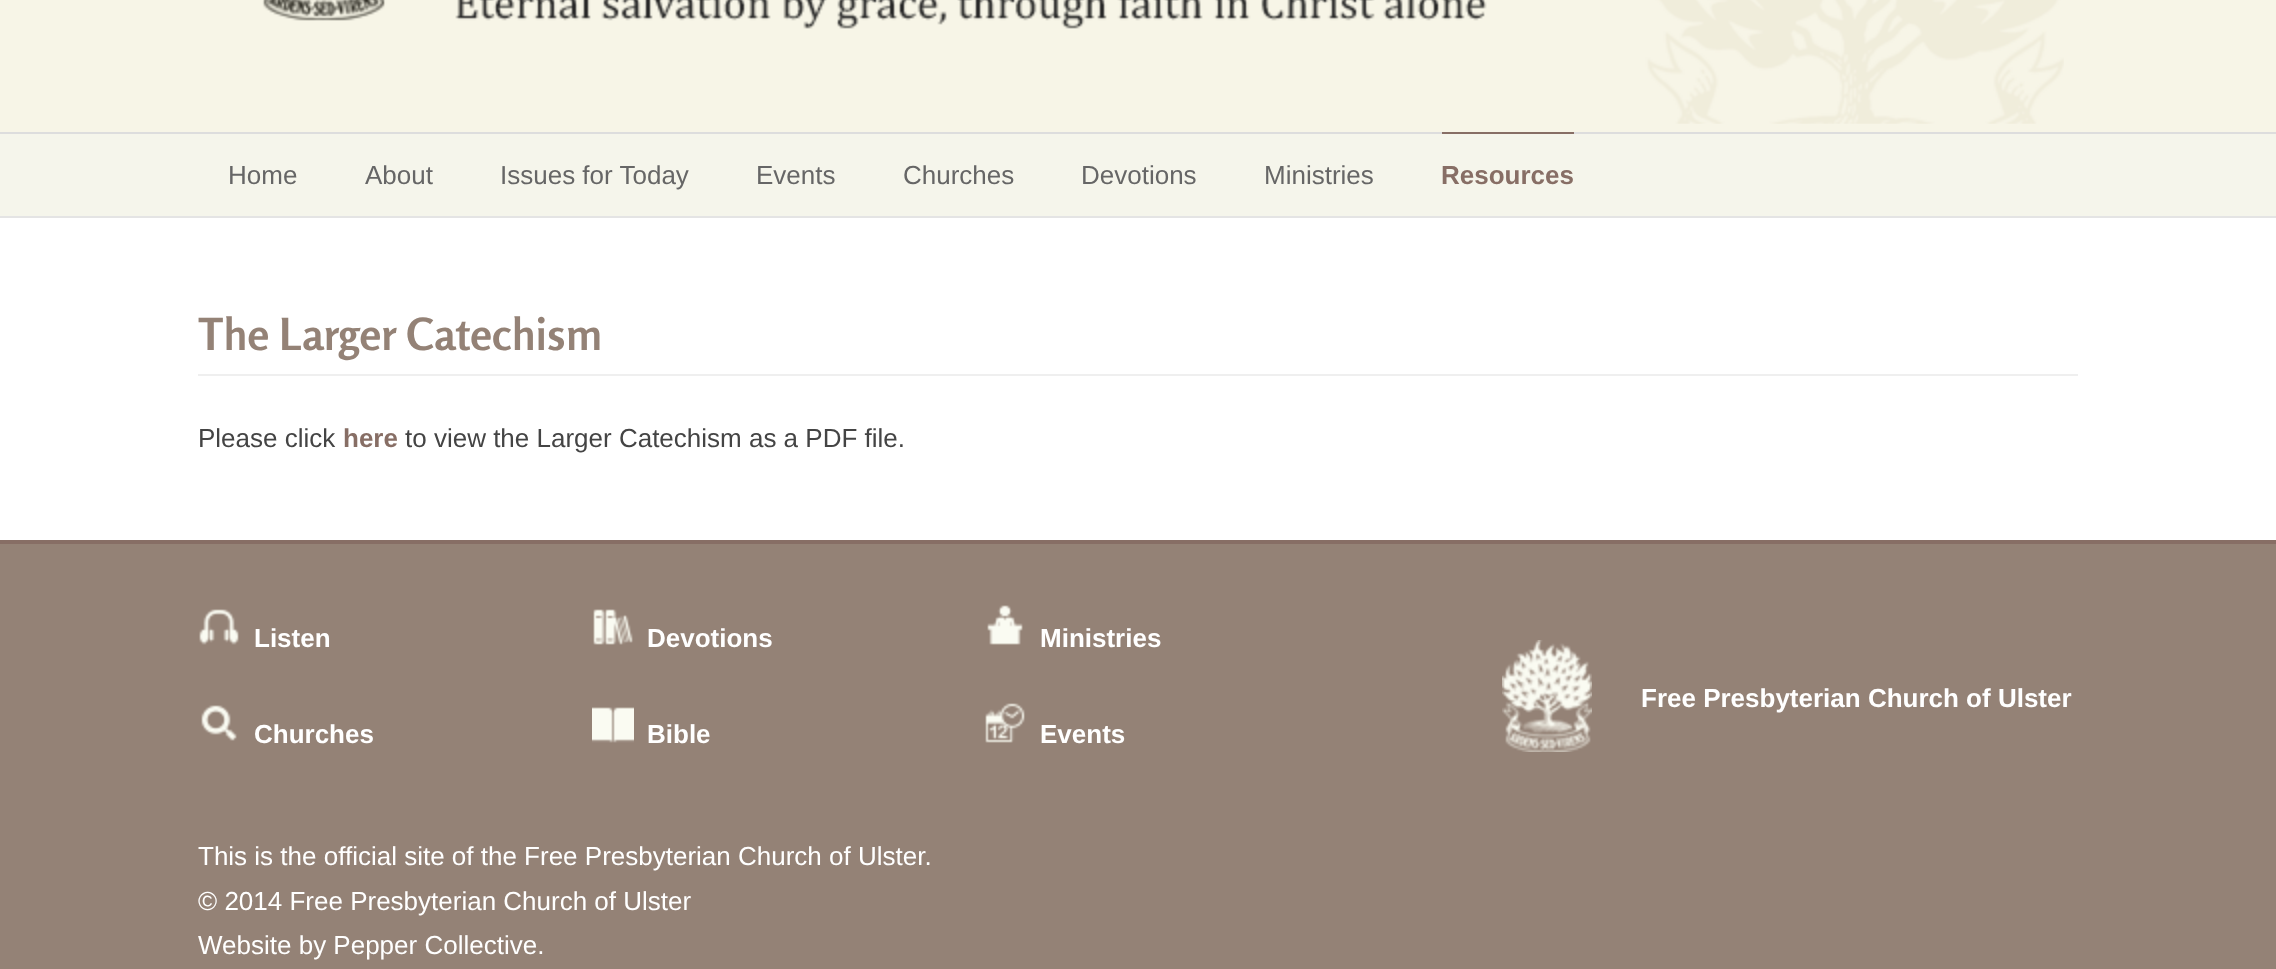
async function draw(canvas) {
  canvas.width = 2276;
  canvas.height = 969;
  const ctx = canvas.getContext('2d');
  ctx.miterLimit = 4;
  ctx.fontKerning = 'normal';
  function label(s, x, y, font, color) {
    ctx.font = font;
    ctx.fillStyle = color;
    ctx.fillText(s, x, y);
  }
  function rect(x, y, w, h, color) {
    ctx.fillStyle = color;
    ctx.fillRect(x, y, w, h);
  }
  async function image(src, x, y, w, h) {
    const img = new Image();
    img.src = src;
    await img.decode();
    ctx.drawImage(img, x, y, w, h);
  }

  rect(0, 0, 2276, 969, '#fff');
  rect(0, 0, 2276, 132, '#f7f5e7');
  await image('assets/img1.png', 262, 0, 1802, 124);
  rect(0, 134, 2276, 82, '#f5f5eb');
  rect(0, 132, 2276, 2, '#ddd');
  label('Home', 228, 184, '26px Liberation Sans', '#666');
  label('About', 365, 184, '26px Liberation Sans', '#666');
  label('Issues for Today', 500, 184, '26px Liberation Sans', '#666');
  label('Events', 756, 184, '26px Liberation Sans', '#666');
  label('Churches', 903, 184, '26px Liberation Sans', '#666');
  label('Devotions', 1081, 184, '26px Liberation Sans', '#666');
  label('Ministries', 1264, 184, '26px Liberation Sans', '#666');
  rect(1442, 132, 132, 2, '#876e65');
  label('Resources', 1441, 184, 'bold 26px Liberation Sans', '#876e65');
  rect(0, 216, 2276, 2, '#e4e4e4');
  label('The Larger Catechism', 198, 350, 'bold 44px Rosario', '#948276');
  rect(198, 374, 1880, 2, '#efefef');
  label('Please click', 198, 447, '26px Liberation Sans', '#444');
  label('here', 343, 447, 'bold 26px Liberation Sans', '#876e65');
  label('to view the Larger Catechism as a PDF file.', 405, 447, '26px Liberation Sans', '#444');
  rect(0, 544, 2276, 425, '#948276');
  rect(0, 540, 2276, 4, '#876e65');
  await image('assets/img2.png', 199, 609, 40, 36);
  label('Listen', 254, 647, 'bold 26px Liberation Sans', '#fff');
  await image('assets/img3.png', 593, 609, 40, 36);
  label('Devotions', 647, 647, 'bold 26px Liberation Sans', '#fff');
  await image('assets/img4.png', 987, 605, 36, 40);
  label('Ministries', 1040, 647, 'bold 26px Liberation Sans', '#fff');
  await image('assets/img5.png', 201, 705, 36, 36);
  label('Churches', 254, 743, 'bold 26px Liberation Sans', '#fff');
  await image('assets/img6.png', 592, 707, 42, 36);
  label('Bible', 647, 743, 'bold 26px Liberation Sans', '#fff');
  await image('assets/img7.png', 985, 703, 40, 40);
  label('Events', 1040, 743, 'bold 26px Liberation Sans', '#fff');
  await image('assets/img8.png', 1502, 640, 90, 112);
  label('Free Presbyterian Church of Ulster', 1641, 707, 'bold 26px Liberation Sans', '#fff');
  label('This is the official site of the Free Presbyterian Church of Ulster.', 198, 865, '26px Liberation Sans', '#fff');
  label('© 2014 Free Presbyterian Church of Ulster', 198, 910, '26px Liberation Sans', '#fff');
  label('Website by Pepper Collective.', 198, 954, '26px Liberation Sans', '#fff');
}

draw(document.querySelector('canvas'));
